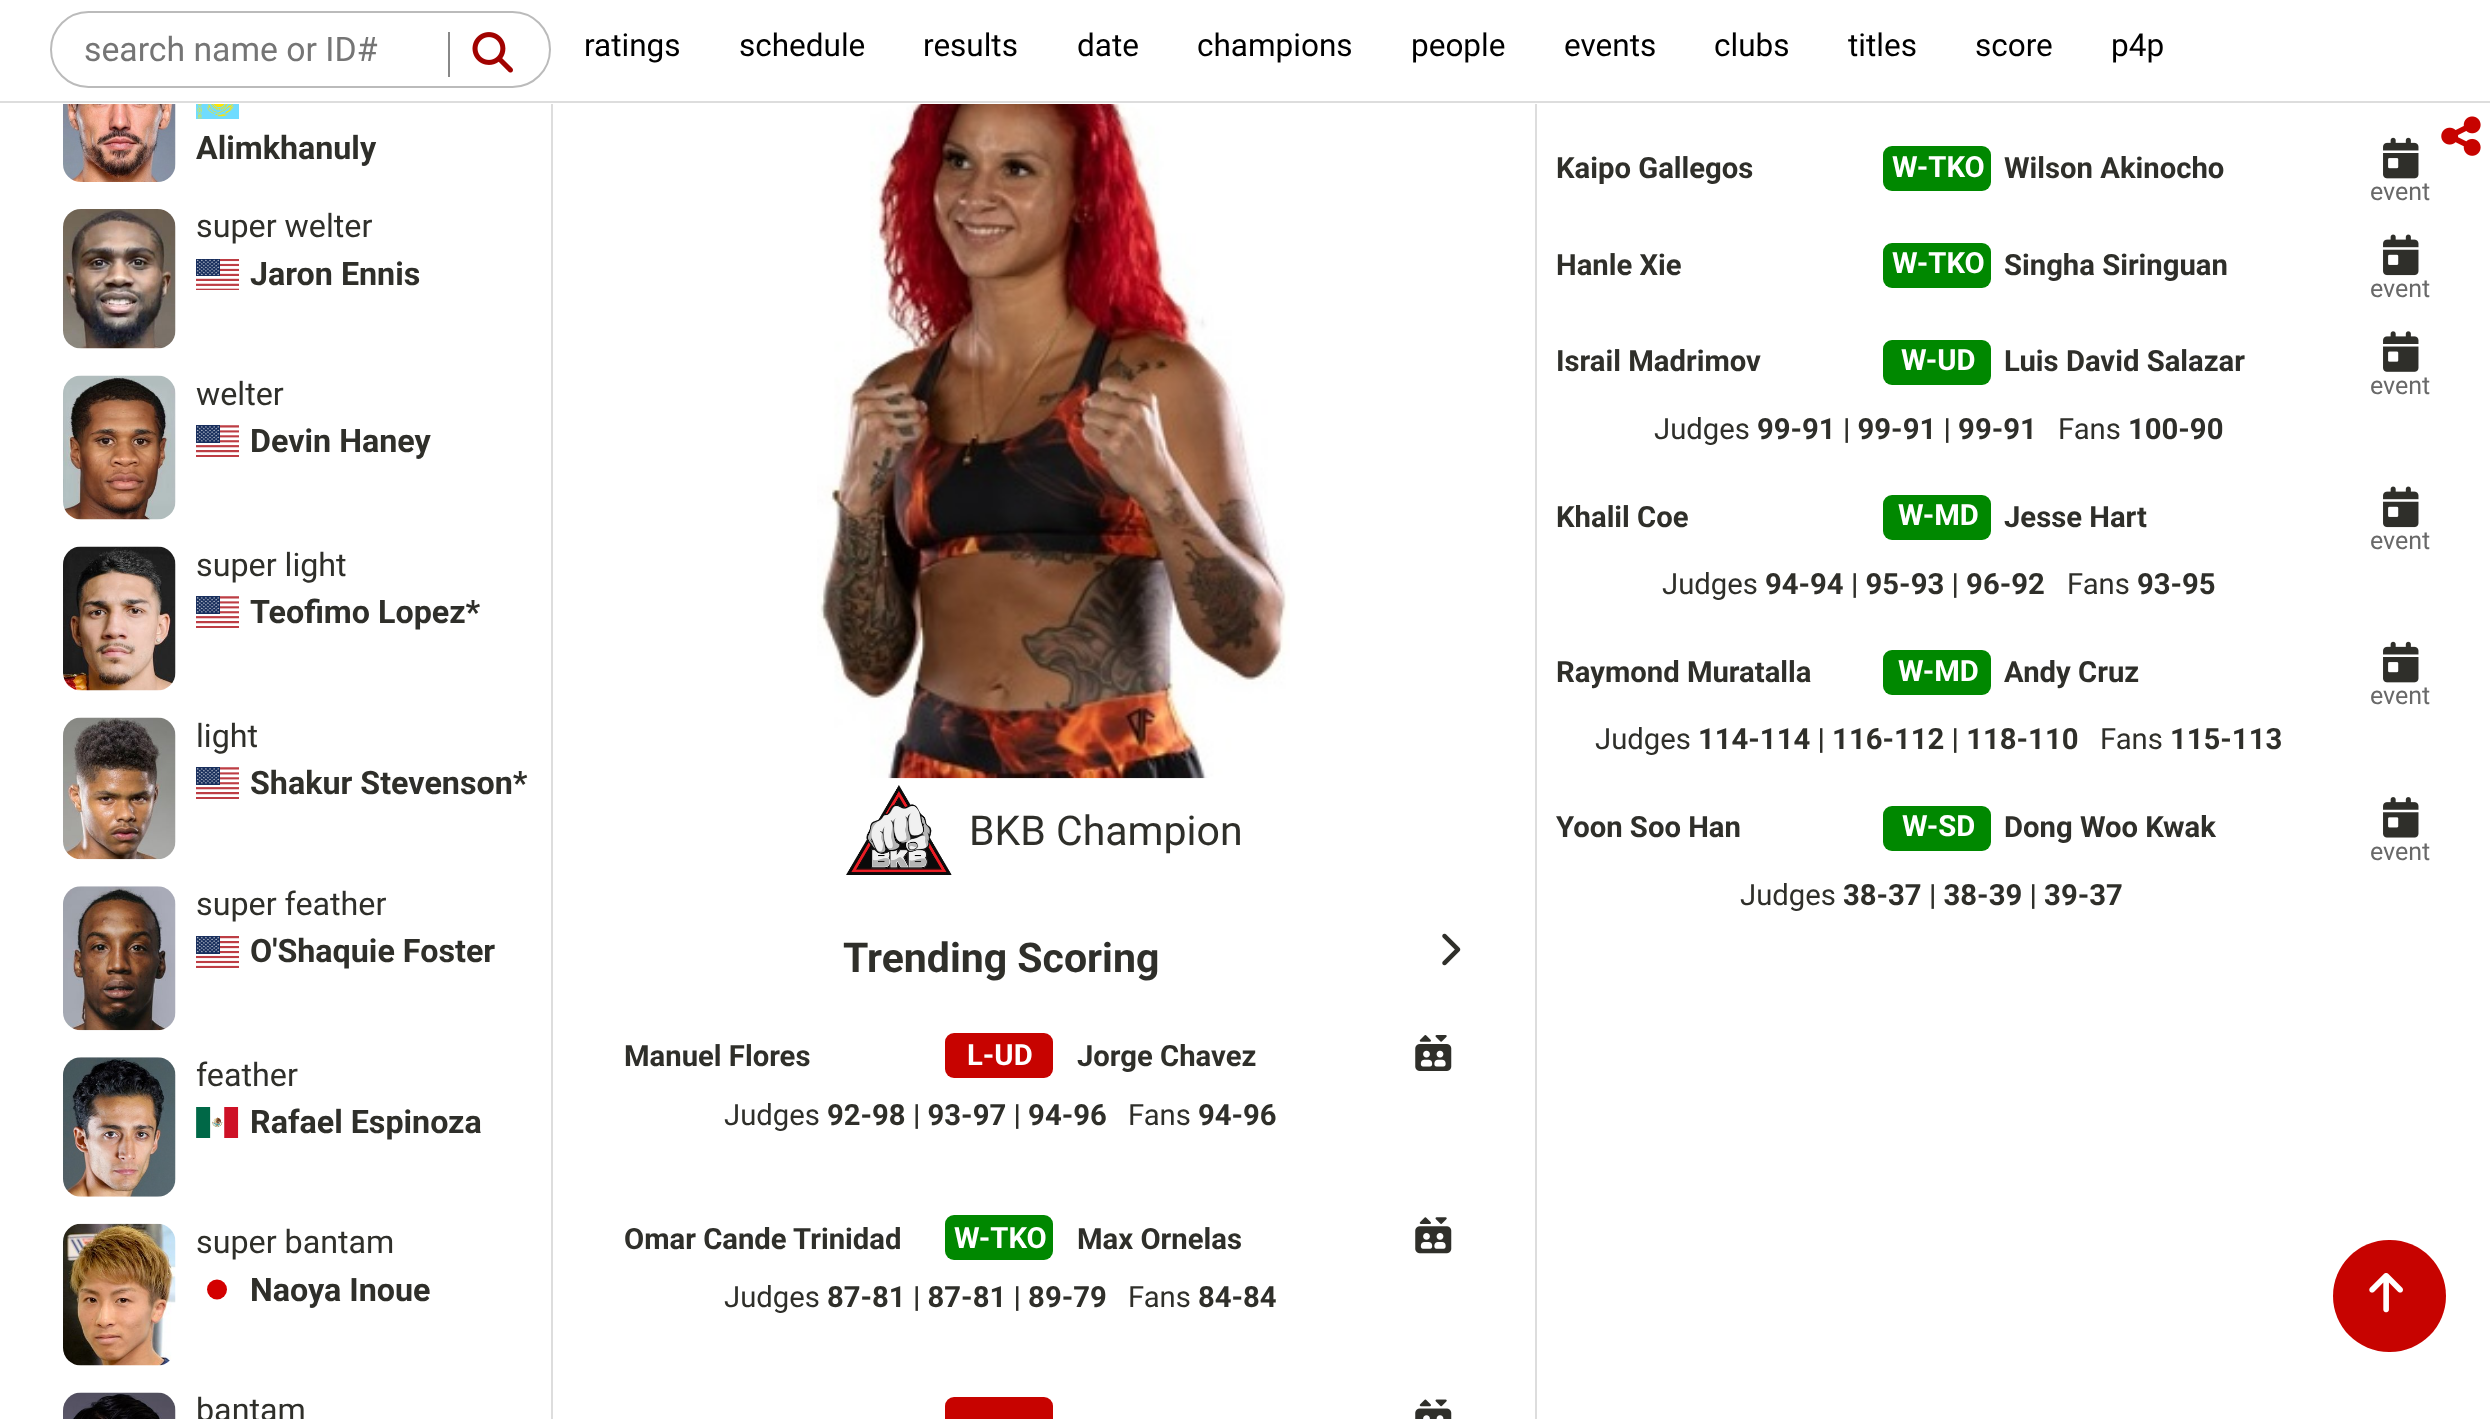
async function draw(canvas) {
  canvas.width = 2490;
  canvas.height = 1419;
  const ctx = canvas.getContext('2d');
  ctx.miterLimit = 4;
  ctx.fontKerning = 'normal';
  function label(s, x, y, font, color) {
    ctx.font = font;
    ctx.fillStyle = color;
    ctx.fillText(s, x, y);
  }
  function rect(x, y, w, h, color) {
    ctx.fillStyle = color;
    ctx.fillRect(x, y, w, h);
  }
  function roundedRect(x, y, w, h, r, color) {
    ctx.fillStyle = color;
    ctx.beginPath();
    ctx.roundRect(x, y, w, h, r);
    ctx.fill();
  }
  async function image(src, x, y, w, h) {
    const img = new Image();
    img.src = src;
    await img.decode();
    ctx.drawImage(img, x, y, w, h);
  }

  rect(0, 0, 2490, 1419, '#fff');
  rect(0, 101, 2490, 2, '#ddd');
  ctx.beginPath();
  ctx.roundRect(51, 12, 499, 75, 37.5);
  ctx.strokeStyle = '#bbb';
  ctx.lineWidth = 2;
  ctx.stroke();
  label('search name or ID#', 84, 61, '33.75px Roboto', '#757575');
  rect(448, 32, 2, 45, '#888');
  await image('assets/img1.png', 472, 32, 41, 41);
  label('ratings', 584, 56, '31.5px Roboto', '#000');
  label('schedule', 739, 56, '31.5px Roboto', '#000');
  label('results', 923, 56, '31.5px Roboto', '#000');
  label('date', 1077, 56, '31.5px Roboto', '#000');
  label('champions', 1197, 56, '31.5px Roboto', '#000');
  label('people', 1411, 56, '31.5px Roboto', '#000');
  label('events', 1564, 56, '31.5px Roboto', '#000');
  label('clubs', 1714, 56, '31.5px Roboto', '#000');
  label('titles', 1848, 56, '31.5px Roboto', '#000');
  label('score', 1975, 56, '31.5px Roboto', '#000');
  label('p4p', 2111, 56, '31.5px Roboto', '#000');
  await image('assets/img2.png', 2441, 116, 40, 40);
  await image('assets/img3.png', 63, 104, 113, 78);
  await image('assets/img4.png', 196, 104, 43, 15);
  label('Alimkhanuly', 196, 159, 'bold 32.25px Roboto', '#2f2f2a');
  await image('assets/img5.png', 63, 209, 113, 140);
  label('super welter', 196, 237, '32.25px Roboto', '#2f2f2a');
  await image('assets/img6.png', 196, 259, 43, 31);
  label('Jaron Ennis', 250, 285, 'bold 32.25px Roboto', '#2f2f2a');
  await image('assets/img7.png', 63, 375, 113, 145);
  label('welter', 196, 405, '32.25px Roboto', '#2f2f2a');
  await image('assets/img8.png', 196, 425, 43, 32);
  label('Devin Haney', 250, 452, 'bold 32.25px Roboto', '#2f2f2a');
  await image('assets/img9.png', 63, 546, 113, 145);
  label('super light', 196, 576, '32.25px Roboto', '#2f2f2a');
  await image('assets/img8.png', 196, 596, 43, 32);
  label('Teofimo Lopez*', 250, 623, 'bold 32.25px Roboto', '#2f2f2a');
  await image('assets/img10.png', 63, 717, 113, 143);
  label('light', 196, 747, '32.25px Roboto', '#2f2f2a');
  await image('assets/img8.png', 196, 767, 43, 32);
  label('Shakur Stevenson*', 250, 794, 'bold 32.25px Roboto', '#2f2f2a');
  await image('assets/img11.png', 63, 886, 113, 145);
  label('super feather', 196, 915, '32.25px Roboto', '#2f2f2a');
  await image('assets/img12.png', 196, 936, 43, 32);
  label('O\'Shaquie Foster', 250, 962, 'bold 32.25px Roboto', '#2f2f2a');
  await image('assets/img13.png', 63, 1057, 113, 140);
  label('feather', 196, 1086, '32.25px Roboto', '#2f2f2a');
  await image('assets/img14.png', 196, 1107, 43, 31);
  label('Rafael Espinoza', 250, 1133, 'bold 32.25px Roboto', '#2f2f2a');
  await image('assets/img15.png', 63, 1223, 113, 143);
  label('super bantam', 196, 1253, '32.25px Roboto', '#2f2f2a');
  ctx.fillStyle = '#d30000';
  ctx.beginPath();
  ctx.arc(217, 1289.5, 10, 0, 2 * Math.PI);
  ctx.fill();
  label('Naoya Inoue', 250, 1301, 'bold 32.25px Roboto', '#2f2f2a');
  await image('assets/img16.png', 63, 1392, 113, 27);
  label('bantam', 196, 1421, '32.25px Roboto', '#2f2f2a');
  rect(551, 104, 2, 1315, '#ddd');
  rect(1535, 104, 2, 1315, '#ddd');
  label('Kaipo Gallegos', 1556, 178, 'bold 29.25px Roboto', '#2f2f2a');
  roundedRect(1883, 146, 108, 45, 9, '#080');
  label('W-TKO', 1892, 177, 'bold 29.25px Roboto', '#fff');
  label('Wilson Akinocho', 2004, 178, 'bold 29.25px Roboto', '#2f2f2a');
  await image('assets/img17.png', 2383, 137, 36, 42);
  label('event', 2370, 200, '25px Roboto', '#696969');
  label('Hanle Xie', 1556, 275, 'bold 29.25px Roboto', '#2f2f2a');
  roundedRect(1883, 243, 108, 45, 9, '#080');
  label('W-TKO', 1892, 273, 'bold 29.25px Roboto', '#fff');
  label('Singha Siringuan', 2004, 275, 'bold 29.25px Roboto', '#2f2f2a');
  await image('assets/img18.png', 2383, 234, 36, 42);
  label('event', 2370, 297, '25px Roboto', '#696969');
  label('Israil Madrimov', 1556, 371, 'bold 29.25px Roboto', '#2f2f2a');
  roundedRect(1883, 340, 108, 45, 9, '#080');
  label('W-UD', 1901, 370, 'bold 29.25px Roboto', '#fff');
  label('Luis David Salazar', 2004, 371, 'bold 29.25px Roboto', '#2f2f2a');
  await image('assets/img19.png', 2383, 331, 36, 41);
  label('event', 2370, 394, '25px Roboto', '#696969');
  label('Judges', 1654, 439, '29.25px Roboto', '#2f2f2a');
  label('99-91 | 99-91 | 99-91', 1757, 439, 'bold 29.25px Roboto', '#2f2f2a');
  label('Fans', 2058, 439, '29.25px Roboto', '#2f2f2a');
  label('100-90', 2128, 439, 'bold 29.25px Roboto', '#2f2f2a');
  label('Khalil Coe', 1556, 527, 'bold 29.25px Roboto', '#2f2f2a');
  roundedRect(1883, 495, 108, 45, 9, '#080');
  label('W-MD', 1898, 525, 'bold 29.25px Roboto', '#fff');
  label('Jesse Hart', 2004, 527, 'bold 29.25px Roboto', '#2f2f2a');
  await image('assets/img18.png', 2383, 486, 36, 42);
  label('event', 2370, 549, '25px Roboto', '#696969');
  label('Judges', 1662, 594, '29.25px Roboto', '#2f2f2a');
  label('94-94 | 95-93 | 96-92', 1765, 594, 'bold 29.25px Roboto', '#2f2f2a');
  label('Fans', 2067, 594, '29.25px Roboto', '#2f2f2a');
  label('93-95', 2137, 594, 'bold 29.25px Roboto', '#2f2f2a');
  label('Raymond Muratalla', 1556, 682, 'bold 29.25px Roboto', '#2f2f2a');
  roundedRect(1883, 650, 108, 45, 9, '#080');
  label('W-MD', 1898, 681, 'bold 29.25px Roboto', '#fff');
  label('Andy Cruz', 2004, 682, 'bold 29.25px Roboto', '#2f2f2a');
  await image('assets/img17.png', 2383, 641, 36, 42);
  label('event', 2370, 704, '25px Roboto', '#696969');
  label('Judges', 1595, 749, '29.25px Roboto', '#2f2f2a');
  label('114-114 | 116-112 | 118-110', 1698, 749, 'bold 29.25px Roboto', '#2f2f2a');
  label('Fans', 2100, 749, '29.25px Roboto', '#2f2f2a');
  label('115-113', 2170, 749, 'bold 29.25px Roboto', '#2f2f2a');
  label('Yoon Soo Han', 1556, 837, 'bold 29.25px Roboto', '#2f2f2a');
  roundedRect(1883, 806, 108, 45, 9, '#080');
  label('W-SD', 1902, 836, 'bold 29.25px Roboto', '#fff');
  label('Dong Woo Kwak', 2004, 837, 'bold 29.25px Roboto', '#2f2f2a');
  await image('assets/img20.png', 2383, 797, 36, 41);
  label('event', 2370, 860, '25px Roboto', '#696969');
  label('Judges', 1740, 905, '29.25px Roboto', '#2f2f2a');
  label('38-37 | 38-39 | 39-37', 1843, 905, 'bold 29.25px Roboto', '#2f2f2a');
  await image('assets/img21.png', 817, 104, 473, 675);
  await image('assets/img22.png', 846, 785, 106, 90);
  label('BKB Champion', 969, 845, '41px Roboto', '#2f2f2a');
  label('Trending Scoring', 843, 972, 'bold 41px Roboto', '#2f2f2a');
  await image('assets/img23.png', 1442, 933, 19, 33);
  label('Manuel Flores', 624, 1066, 'bold 29.25px Roboto', '#2f2f2a');
  roundedRect(945, 1033, 108, 45, 9, '#c70300');
  label('L-UD', 967, 1065, 'bold 29.25px Roboto', '#fff');
  label('Jorge Chavez', 1077, 1066, 'bold 29.25px Roboto', '#2f2f2a');
  await image('assets/img24.png', 1415, 1035, 37, 36);
  label('Judges', 724, 1125, '29.25px Roboto', '#2f2f2a');
  label('92-98 | 93-97 | 94-96', 827, 1125, 'bold 29.25px Roboto', '#2f2f2a');
  label('Fans', 1128, 1125, '29.25px Roboto', '#2f2f2a');
  label('94-96', 1198, 1125, 'bold 29.25px Roboto', '#2f2f2a');
  label('Omar Cande Trinidad', 624, 1249, 'bold 29.25px Roboto', '#2f2f2a');
  roundedRect(945, 1215, 108, 45, 9, '#080');
  label('W-TKO', 954, 1248, 'bold 29.25px Roboto', '#fff');
  label('Max Ornelas', 1077, 1249, 'bold 29.25px Roboto', '#2f2f2a');
  await image('assets/img25.png', 1415, 1217, 37, 37);
  label('Judges', 724, 1307, '29.25px Roboto', '#2f2f2a');
  label('87-81 | 87-81 | 89-79', 827, 1307, 'bold 29.25px Roboto', '#2f2f2a');
  label('Fans', 1128, 1307, '29.25px Roboto', '#2f2f2a');
  label('84-84', 1198, 1307, 'bold 29.25px Roboto', '#2f2f2a');
  roundedRect(945, 1397, 108, 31, 9, '#c70300');
  await image('assets/img26.png', 1415, 1399, 37, 20);
  roundedRect(2333, 1240, 113, 112, 56, '#c70300');
  await image('assets/img27.png', 2369, 1273, 34, 40);
}

draw(document.querySelector('canvas'));
